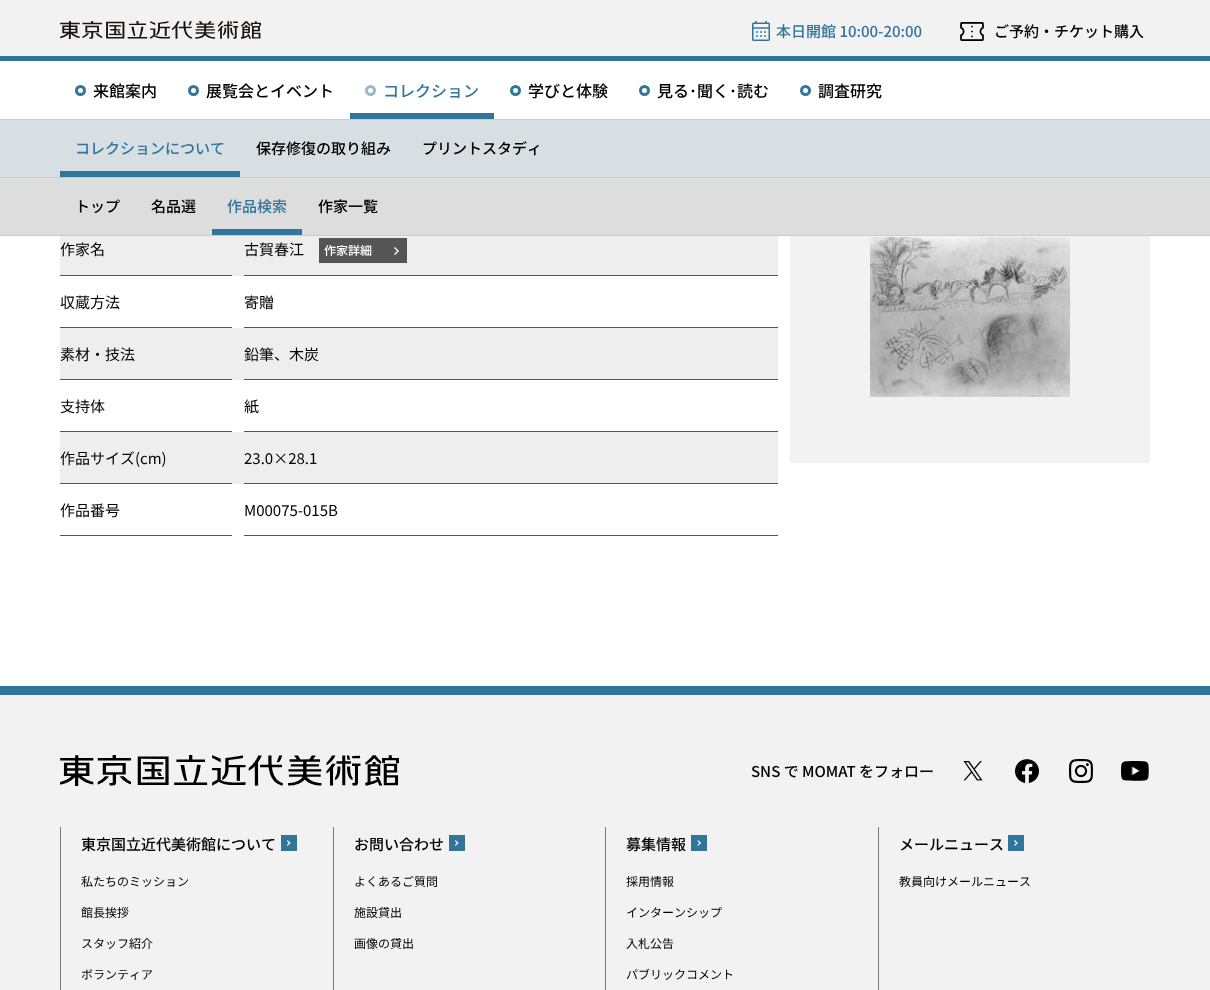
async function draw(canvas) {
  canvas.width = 1210;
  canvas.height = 990;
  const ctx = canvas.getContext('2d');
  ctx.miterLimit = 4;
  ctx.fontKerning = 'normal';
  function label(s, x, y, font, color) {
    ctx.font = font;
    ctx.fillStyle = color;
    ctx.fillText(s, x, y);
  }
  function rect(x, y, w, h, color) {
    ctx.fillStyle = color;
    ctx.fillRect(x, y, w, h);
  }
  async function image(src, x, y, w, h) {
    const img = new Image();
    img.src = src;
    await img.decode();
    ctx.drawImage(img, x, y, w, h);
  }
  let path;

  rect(0, 0, 1210, 990, '#f2f2f2');
  rect(0, 56, 1210, 5, '#31759a');
  await image('assets/img1.png', 60, 21, 201, 18);
  await image('assets/img2.png', 752, 21, 18, 20);
  label('本日開館 10:00-20:00', 776, 37, '500 15px Noto Sans JP', '#31759a');
  await image('assets/img3.png', 960, 22, 24, 19);
  label('ご予約・チケット購入', 994, 37, '500 15px Noto Sans JP', '#000');
  rect(0, 61, 1210, 58, '#fff');
  rect(0, 119, 1210, 1, '#ccc');
  ctx.beginPath();
  ctx.arc(80.5, 90.5, 4, 0, 2 * Math.PI);
  ctx.strokeStyle = '#31759a';
  ctx.lineWidth = 3;
  ctx.stroke();
  label('来館案内', 93, 97, '500 16px Noto Sans JP', '#000');
  ctx.beginPath();
  ctx.arc(193.5, 90.5, 4, 0, 2 * Math.PI);
  ctx.stroke();
  label('展覧会とイベント', 206, 97, '500 16px Noto Sans JP', '#000');
  ctx.beginPath();
  ctx.arc(370.5, 90.5, 4, 0, 2 * Math.PI);
  ctx.strokeStyle = '#98bacd';
  ctx.stroke();
  label('コレクション', 383, 97, '500 16px Noto Sans JP', '#31759a');
  rect(350, 113, 144, 6, '#31759a');
  ctx.beginPath();
  ctx.arc(515.5, 90.5, 4, 0, 2 * Math.PI);
  ctx.strokeStyle = '#31759a';
  ctx.stroke();
  label('学びと体験', 528, 97, '500 16px Noto Sans JP', '#000');
  ctx.beginPath();
  ctx.arc(644.5, 90.5, 4, 0, 2 * Math.PI);
  ctx.stroke();
  label('見る･聞く･読む', 657, 97, '500 16px Noto Sans JP', '#000');
  ctx.beginPath();
  ctx.arc(805.5, 90.5, 4, 0, 2 * Math.PI);
  ctx.stroke();
  label('調査研究', 818, 97, '500 16px Noto Sans JP', '#000');
  rect(0, 120, 1210, 57, '#d8dfe3');
  rect(0, 177, 1210, 1, '#ccc');
  label('コレクションについて', 75, 154, '500 15px Noto Sans JP', '#31759a');
  rect(60, 171, 180, 6, '#31759a');
  label('保存修復の取り組み', 256, 154, '500 15px Noto Sans JP', '#000');
  label('プリントスタディ', 422, 154, '500 15px Noto Sans JP', '#000');
  rect(0, 178, 1210, 57, '#ddd');
  rect(0, 235, 1210, 1, '#ccc');
  label('トップ', 75, 212, '500 15px Noto Sans JP', '#000');
  label('名品選', 151, 212, '500 15px Noto Sans JP', '#000');
  label('作品検索', 227, 212, '500 15px Noto Sans JP', '#31759a');
  rect(212, 229, 90, 6, '#31759a');
  label('作家一覧', 318, 212, '500 15px Noto Sans JP', '#000');
  rect(0, 236, 1210, 450, '#fff');
  rect(60, 236, 718, 40, '#eee');
  rect(60, 275, 172, 1, '#555');
  label('作家名', 60, 255, '15px Noto Sans JP', '#000');
  rect(244, 275, 534, 1, '#555');
  label('古賀春江', 244, 255, '15px Noto Sans JP', '#000');
  rect(319, 238, 88, 25, '#555');
  await image('assets/img4.png', 394, 247, 5, 8);
  label('作家詳細', 324, 255, '500 12px Noto Sans JP', '#fff');
  rect(60, 327, 172, 1, '#555');
  label('収蔵方法', 60, 308, '15px Noto Sans JP', '#000');
  rect(244, 327, 534, 1, '#555');
  label('寄贈', 244, 308, '15px Noto Sans JP', '#000');
  rect(60, 328, 718, 52, '#eee');
  rect(60, 379, 172, 1, '#555');
  label('素材・技法', 60, 360, '15px Noto Sans JP', '#000');
  rect(244, 379, 534, 1, '#555');
  label('鉛筆、木炭', 244, 360, '15px Noto Sans JP', '#000');
  rect(60, 431, 172, 1, '#555');
  label('支持体', 60, 412, '15px Noto Sans JP', '#000');
  rect(244, 431, 534, 1, '#555');
  label('紙', 244, 412, '15px Noto Sans JP', '#000');
  rect(60, 432, 718, 52, '#eee');
  rect(60, 483, 172, 1, '#555');
  label('作品サイズ(cm)', 60, 464, '15px Noto Sans JP', '#000');
  rect(244, 483, 534, 1, '#555');
  label('23.0×28.1', 244, 464, '15px Noto Sans JP', '#000');
  rect(60, 535, 172, 1, '#555');
  label('作品番号', 60, 516, '15px Noto Sans JP', '#000');
  rect(244, 535, 534, 1, '#555');
  label('M00075-015B', 244, 516, '15px Noto Sans JP', '#000');
  rect(790, 236, 360, 227, '#f2f2f2');
  await image('assets/img5.png', 870, 237, 200, 160);
  rect(0, 686, 1210, 9, '#31759a');
  await image('assets/img6.png', 60, 755, 339, 31);
  label('SNS で MOMAT をフォロー', 751, 777, '500 15px Noto Sans JP', '#000');
  await image('assets/img7.png', 963, 761, 20, 20);
  await image('assets/img8.png', 1015, 759, 24, 24);
  await image('assets/img9.png', 1069, 759, 24, 24);
  await image('assets/img10.png', 1121, 761, 28, 20);
  rect(60, 827, 1, 163, '#797979');
  label('東京国立近代美術館について', 81, 850, '500 15px Noto Sans JP', '#000');
  rect(281, 835, 16, 16, '#31759a');
  ctx.fillStyle = '#fff';
  path = new Path2D('M287 841L287.5 840L290.5 843L289.5 844Z');
  ctx.fill(path);
  path = new Path2D('M287 845L289.5 842.5L290.5 843L287.5 846Z');
  ctx.fill(path);
  label('私たちのミッション', 81, 886, '12px Noto Sans JP', '#000');
  label('館長挨拶', 81, 917, '12px Noto Sans JP', '#000');
  label('スタッフ紹介', 81, 948, '12px Noto Sans JP', '#000');
  label('ボランティア', 81, 979, '12px Noto Sans JP', '#000');
  rect(333, 827, 1, 163, '#797979');
  label('お問い合わせ', 354, 850, '500 15px Noto Sans JP', '#000');
  rect(449, 835, 16, 16, '#31759a');
  ctx.fillStyle = '#fff';
  path = new Path2D('M455 841L455.5 840L458.5 843L457.5 844Z');
  ctx.fill(path);
  path = new Path2D('M455 845L457.5 842.5L458.5 843L455.5 846Z');
  ctx.fill(path);
  label('よくあるご質問', 354, 886, '12px Noto Sans JP', '#000');
  label('施設貸出', 354, 917, '12px Noto Sans JP', '#000');
  label('画像の貸出', 354, 948, '12px Noto Sans JP', '#000');
  rect(605, 827, 1, 163, '#797979');
  label('募集情報', 626, 850, '500 15px Noto Sans JP', '#000');
  rect(691, 835, 16, 16, '#31759a');
  ctx.fillStyle = '#fff';
  path = new Path2D('M697.5 841L698 840L701 843L700 844Z');
  ctx.fill(path);
  path = new Path2D('M697.5 845L700 842.5L701 843L698 846Z');
  ctx.fill(path);
  label('採用情報', 626, 886, '12px Noto Sans JP', '#000');
  label('インターンシップ', 626, 917, '12px Noto Sans JP', '#000');
  label('入札公告', 626, 948, '12px Noto Sans JP', '#000');
  label('パブリックコメント', 626, 979, '12px Noto Sans JP', '#000');
  rect(878, 827, 1, 163, '#797979');
  label('メールニュース', 899, 850, '500 15px Noto Sans JP', '#000');
  rect(1008, 835, 16, 16, '#31759a');
  ctx.fillStyle = '#fff';
  path = new Path2D('M1014 841L1015 840L1017.5 843L1017 844Z');
  ctx.fill(path);
  path = new Path2D('M1014 845L1017 842.5L1017.5 843L1015 846Z');
  ctx.fill(path);
  label('教員向けメールニュース', 899, 886, '12px Noto Sans JP', '#000');
}

draw(document.querySelector('canvas'));
